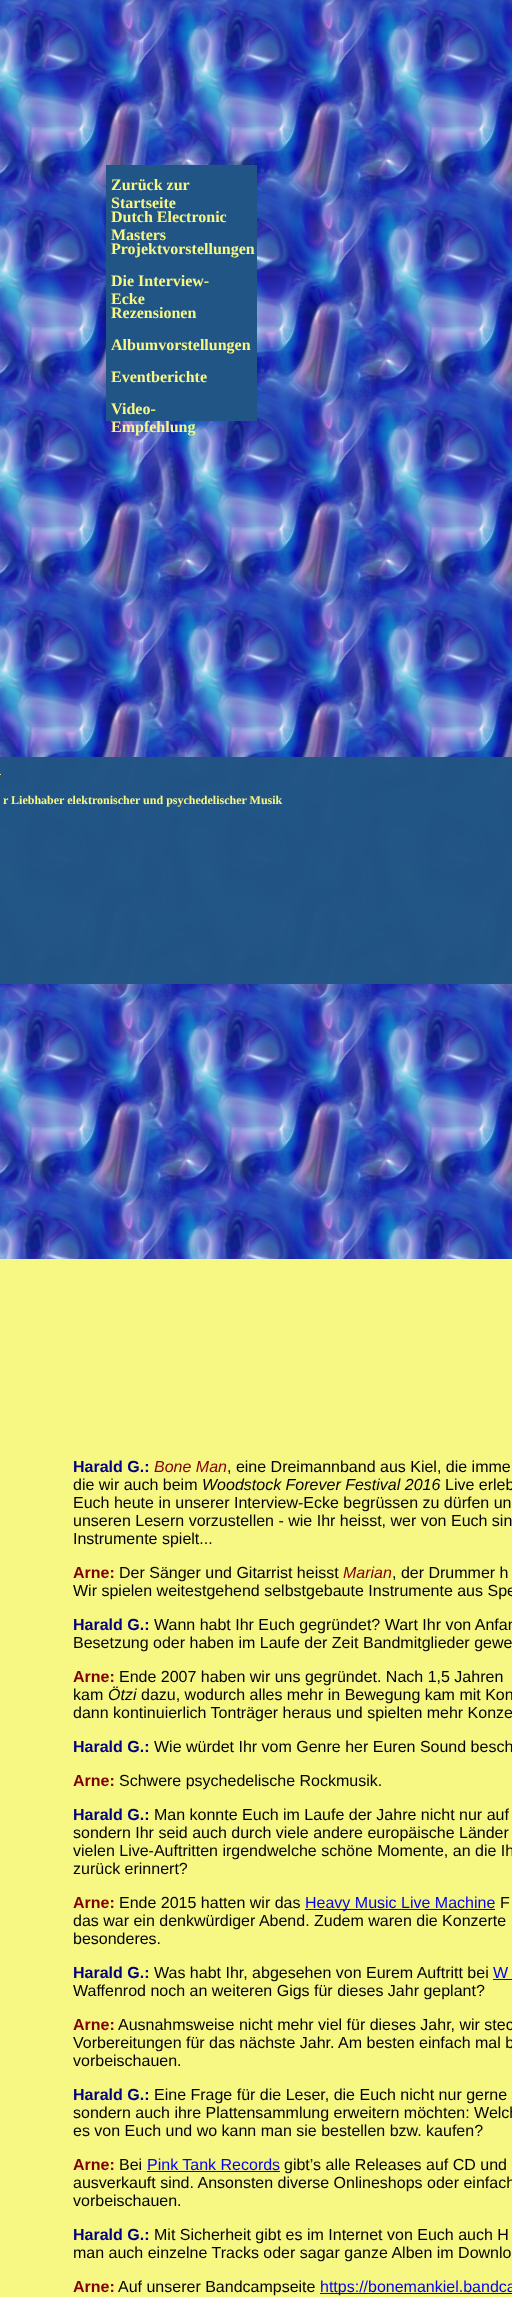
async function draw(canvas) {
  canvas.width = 512;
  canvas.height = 2297;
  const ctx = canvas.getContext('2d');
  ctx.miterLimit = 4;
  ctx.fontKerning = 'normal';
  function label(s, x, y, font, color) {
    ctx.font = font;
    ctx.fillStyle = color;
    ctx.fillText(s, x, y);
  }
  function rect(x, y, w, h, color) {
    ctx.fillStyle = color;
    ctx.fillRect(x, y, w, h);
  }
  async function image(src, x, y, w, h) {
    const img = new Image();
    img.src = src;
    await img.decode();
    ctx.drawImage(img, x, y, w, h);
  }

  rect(0, 0, 512, 2297, '#fff');
  await image('assets/img1.png', 0, 0, 512, 1259);
  rect(106, 165, 151, 256, '#215585');
  label('Zurück zur', 111, 190, 'bold 16px Liberation Serif', '#f7f783');
  label('Startseite', 111, 208, 'bold 16px Liberation Serif', '#f7f783');
  label('Dutch Electronic', 111, 222, 'bold 16px Liberation Serif', '#f7f783');
  label('Masters', 111, 240, 'bold 16px Liberation Serif', '#f7f783');
  label('Projektvorstellungen', 111, 254, 'bold 16px Liberation Serif', '#f7f783');
  label('Die Interview-', 111, 286, 'bold 16px Liberation Serif', '#f7f783');
  label('Ecke', 111, 304, 'bold 16px Liberation Serif', '#f7f783');
  label('Rezensionen', 111, 318, 'bold 16px Liberation Serif', '#f7f783');
  label('Albumvorstellungen', 111, 350, 'bold 16px Liberation Serif', '#f7f783');
  label('Eventberichte', 111, 382, 'bold 16px Liberation Serif', '#f7f783');
  label('Video-', 111, 414, 'bold 16px Liberation Serif', '#f7f783');
  label('Empfehlung', 111, 432, 'bold 16px Liberation Serif', '#f7f783');
  rect(0, 757, 512, 227, '#215585fc');
  rect(0, 774, 1, 1, '#f5f583');
  label('r Liebhaber elektronischer und psychedelischer Musik', 3, 804, 'bold 12px Liberation Serif', '#f7f783');
  rect(0, 1259, 512, 1038, '#f7f783');
  label('Harald G.:', 73, 1472, 'bold 16px Liberation Sans', '#000080');
  label('Bone Man', 154, 1472, 'italic 16px Liberation Sans', '#800000');
  label(', eine Dreimannband aus Kiel, die imme', 227, 1472, '16px Liberation Sans', '#000');
  label('die wir auch beim', 73, 1490, '16px Liberation Sans', '#000');
  label('Woodstock Forever Festival 2016', 202, 1490, 'italic 16px Liberation Sans', '#000');
  label('Live erleb', 445, 1490, '16px Liberation Sans', '#000');
  label('Euch heute in unserer Interview-Ecke begrüssen zu dürfen un', 73, 1508, '16px Liberation Sans', '#000');
  label('unseren Lesern vorzustellen - wie Ihr heisst, wer von Euch sin', 73, 1526, '16px Liberation Sans', '#000');
  label('Instrumente spielt...', 73, 1544, '16px Liberation Sans', '#000');
  label('Arne:', 73, 1578, 'bold 16px Liberation Sans', '#800000');
  label('Der Sänger und Gitarrist heisst', 119, 1578, '16px Liberation Sans', '#000');
  label('Marian', 343, 1578, 'italic 16px Liberation Sans', '#800000');
  label(', der Drummer h', 392, 1578, '16px Liberation Sans', '#000');
  label('Wir spielen weitestgehend selbstgebaute Instrumente aus Spe', 73, 1596, '16px Liberation Sans', '#000');
  label('Harald G.:', 73, 1630, 'bold 16px Liberation Sans', '#000080');
  label('Wann habt Ihr Euch gegründet? Wart Ihr von Anfan', 154, 1630, '16px Liberation Sans', '#000');
  label('Besetzung oder haben im Laufe der Zeit Bandmitglieder gewe', 73, 1648, '16px Liberation Sans', '#000');
  label('Arne:', 73, 1682, 'bold 16px Liberation Sans', '#800000');
  label('Ende 2007 haben wir uns gegründet. Nach 1,5 Jahren', 119, 1682, '16px Liberation Sans', '#000');
  label('kam', 73, 1700, '16px Liberation Sans', '#000');
  label('Ötzi', 108, 1700, 'italic 16px Liberation Sans', '#000');
  label('dazu, wodurch alles mehr in Bewegung kam mit Kon', 141, 1700, '16px Liberation Sans', '#000');
  label('dann kontinuierlich Tonträger heraus und spielten mehr Konze', 73, 1718, '16px Liberation Sans', '#000');
  label('Harald G.:', 73, 1752, 'bold 16px Liberation Sans', '#000080');
  label('Wie würdet Ihr vom Genre her Euren Sound besch', 154, 1752, '16px Liberation Sans', '#000');
  label('Arne:', 73, 1786, 'bold 16px Liberation Sans', '#800000');
  label('Schwere psychedelische Rockmusik.', 119, 1786, '16px Liberation Sans', '#000');
  label('Harald G.:', 73, 1820, 'bold 16px Liberation Sans', '#000080');
  label('Man konnte Euch im Laufe der Jahre nicht nur auf', 154, 1820, '16px Liberation Sans', '#000');
  label('sondern Ihr seid auch durch viele andere europäische Länder', 73, 1838, '16px Liberation Sans', '#000');
  label('vielen Live-Auftritten irgendwelche schöne Momente, an die Ih', 73, 1856, '16px Liberation Sans', '#000');
  label('zurück erinnert?', 73, 1874, '16px Liberation Sans', '#000');
  label('Arne:', 73, 1908, 'bold 16px Liberation Sans', '#800000');
  label('Ende 2015 hatten wir das', 119, 1908, '16px Liberation Sans', '#000');
  rect(305, 1909, 190, 1, '#00e');
  label('Heavy Music Live Machine', 305, 1908, '16px Liberation Sans', '#00e');
  label('F', 500, 1908, '16px Liberation Sans', '#000');
  label('das war ein denkwürdiger Abend. Zudem waren die Konzerte', 73, 1926, '16px Liberation Sans', '#000');
  label('besonderes.', 73, 1944, '16px Liberation Sans', '#000');
  label('Harald G.:', 73, 1978, 'bold 16px Liberation Sans', '#000080');
  label('Was habt Ihr, abgesehen von Eurem Auftritt bei', 154, 1978, '16px Liberation Sans', '#000');
  label('W', 493, 1978, '16px Liberation Sans', '#00e');
  rect(493, 1979, 19, 1, '#00e');
  label('Waffenrod noch an weiteren Gigs für dieses Jahr geplant?', 73, 1996, '16px Liberation Sans', '#000');
  label('Arne:', 73, 2030, 'bold 16px Liberation Sans', '#800000');
  label('Ausnahmsweise nicht mehr viel für dieses Jahr, wir stec', 118, 2030, '16px Liberation Sans', '#000');
  label('Vorbereitungen für das nächste Jahr. Am besten einfach mal b', 73, 2048, '16px Liberation Sans', '#000');
  label('vorbeischauen.', 73, 2066, '16px Liberation Sans', '#000');
  label('Harald G.:', 73, 2100, 'bold 16px Liberation Sans', '#000080');
  label('Eine Frage für die Leser, die Euch nicht nur gerne', 154, 2100, '16px Liberation Sans', '#000');
  label('sondern auch ihre Plattensammlung erweitern möchten: Welch', 73, 2118, '16px Liberation Sans', '#000');
  label('es von Euch und wo kann man sie bestellen bzw. kaufen?', 73, 2136, '16px Liberation Sans', '#000');
  label('Arne:', 73, 2170, 'bold 16px Liberation Sans', '#800000');
  label('Bei', 119, 2170, '16px Liberation Sans', '#000');
  label('Pink Tank Records', 147, 2170, '16px Liberation Sans', '#00e');
  rect(147, 2171, 133, 1, '#00e');
  label('gibt’s alle Releases auf CD und', 284, 2170, '16px Liberation Sans', '#000');
  label('ausverkauft sind. Ansonsten diverse Onlineshops oder einfach', 73, 2188, '16px Liberation Sans', '#000');
  label('vorbeischauen.', 73, 2206, '16px Liberation Sans', '#000');
  label('Harald G.:', 73, 2240, 'bold 16px Liberation Sans', '#000080');
  label('Mit Sicherheit gibt es im Internet von Euch auch H', 154, 2240, '16px Liberation Sans', '#000');
  label('man auch einzelne Tracks oder sagar ganze Alben im Downlo', 73, 2258, '16px Liberation Sans', '#000');
  label('Arne:', 73, 2292, 'bold 16px Liberation Sans', '#800000');
  label('Auf unserer Bandcampseite', 118, 2292, '16px Liberation Sans', '#000');
  rect(320, 2293, 192, 1, '#00e');
  label('https://bonemankiel.bandca', 320, 2292, '16px Liberation Sans', '#00e');
}

draw(document.querySelector('canvas'));
